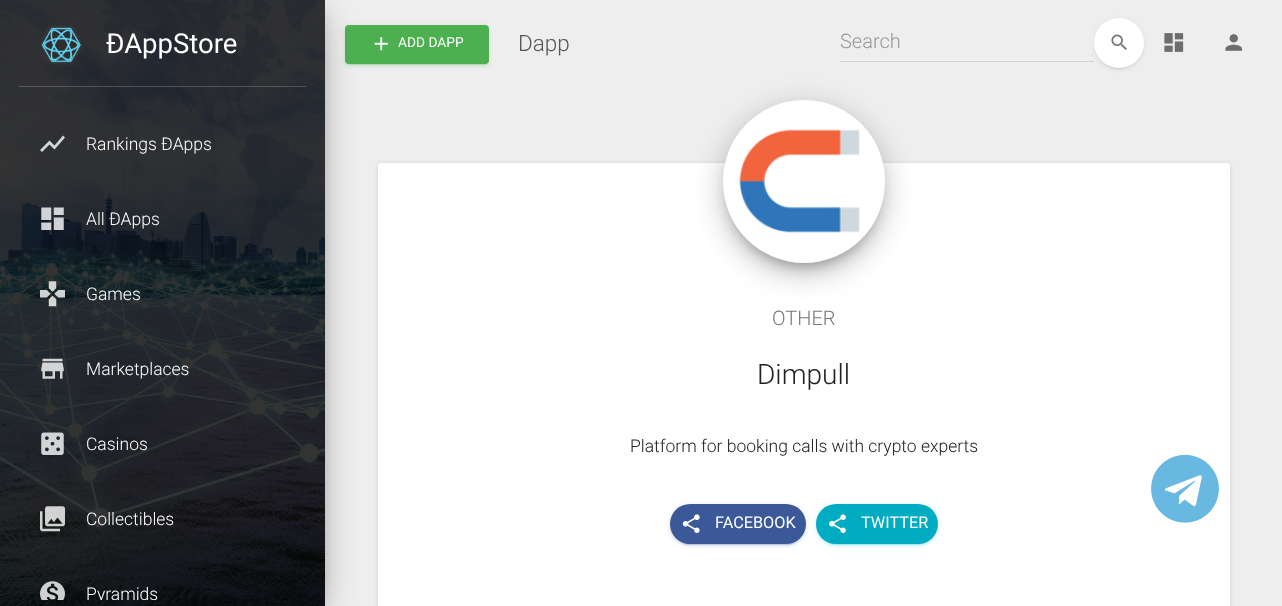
async function draw(canvas) {
  canvas.width = 1282;
  canvas.height = 606;
  const ctx = canvas.getContext('2d');
  ctx.miterLimit = 4;
  ctx.fontKerning = 'normal';
  function label(s, x, y, font, color) {
    ctx.font = font;
    ctx.fillStyle = color;
    ctx.fillText(s, x, y);
  }
  function rect(x, y, w, h, color) {
    ctx.fillStyle = color;
    ctx.fillRect(x, y, w, h);
  }
  function roundedRect(x, y, w, h, r, color) {
    ctx.fillStyle = color;
    ctx.beginPath();
    ctx.roundRect(x, y, w, h, r);
    ctx.fill();
  }
  async function image(src, x, y, w, h) {
    const img = new Image();
    img.src = src;
    await img.decode();
    ctx.drawImage(img, x, y, w, h);
  }
  let path;

  rect(0, 0, 1282, 606, '#eee');
  ctx.fillStyle = '#00000033';
  ctx.filter = 'blur(6px)';
  ctx.beginPath();
  ctx.rect(6, 16, 313, 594);
  ctx.fill();
  ctx.filter = 'none';
  ctx.fillStyle = '#0000001f';
  ctx.filter = 'blur(15.5px)';
  ctx.beginPath();
  ctx.rect(0, 5, 325, 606);
  ctx.fill();
  ctx.filter = 'none';
  ctx.fillStyle = '#0000006b';
  ctx.filter = 'blur(19px)';
  ctx.beginPath();
  ctx.rect(15, 28, 295, 576);
  ctx.fill();
  ctx.filter = 'none';
  await image('assets/img1.png', 0, 0, 325, 606);
  await image('assets/img2.png', 41, 25, 43, 40);
  label('ÐAppStore', 106, 53, '27.5px Roboto', '#fff');
  rect(19, 86, 287, 1, '#b4b4b44d');
  ctx.fillStyle = '#d5d6d6';
  path = new Path2D('M42 152L49.5 144.5L54.5 149.5L65 137.5L63 135.5L54.5 145.5L49.5 140.5L40 150Z');
  ctx.fill(path);
  label('Rankings ÐApps', 86, 150, '300 17.5px Roboto', '#fff');
  await image('assets/img3.png', 41, 207, 23, 23);
  label('All ÐApps', 86, 225, '300 17.5px Roboto', '#fff');
  await image('assets/img4.png', 40, 281, 25, 26);
  label('Games', 86, 300, '300 17.5px Roboto', '#fff');
  await image('assets/img5.png', 41, 358, 23, 21);
  label('Marketplaces', 86, 375, '300 17.5px Roboto', '#fff');
  await image('assets/img6.png', 41, 432, 23, 23);
  label('Casinos', 86, 450, '300 17.5px Roboto', '#fff');
  await image('assets/img7.png', 40, 506, 25, 26);
  label('Collectibles', 86, 525, '300 17.5px Roboto', '#fff');
  await image('assets/img8.png', 40, 581, 25, 19);
  ctx.save();
  ctx.beginPath();
  ctx.rect(0, 88, 325, 512);
  ctx.clip();
  label('Pyramids', 86, 600, '300 17.5px Roboto', '#fff');
  ctx.restore();
  ctx.fillStyle = '#4caf501f';
  ctx.filter = 'blur(3px)';
  ctx.beginPath();
  ctx.roundRect(345, 26, 144, 39, 4);
  ctx.fill();
  ctx.filter = 'none';
  ctx.fillStyle = '#4caf5033';
  ctx.filter = 'blur(0.5px)';
  ctx.beginPath();
  ctx.roundRect(348, 31, 138, 34, 1);
  ctx.fill();
  ctx.filter = 'none';
  ctx.fillStyle = '#4caf5024';
  ctx.filter = 'blur(1px)';
  ctx.beginPath();
  ctx.roundRect(345, 28, 144, 38, 4);
  ctx.fill();
  ctx.filter = 'none';
  roundedRect(345, 25, 144, 39, 4, '#4caf50');
  await image('assets/img9.png', 374, 37, 14, 14);
  label('ADD DAPP', 398, 47, '13.75px Roboto', '#fff');
  label('Dapp', 518, 51, '300 22.5px Roboto', '#555');
  label('Search', 840, 48, '300 20px Roboto', '#979797');
  ctx.fillStyle = '#00000024';
  ctx.filter = 'blur(2.5px)';
  ctx.beginPath();
  ctx.roundRect(378, 164, 852, 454, 4);
  ctx.fill();
  ctx.filter = 'none';
  ctx.fillStyle = '#fff';
  ctx.beginPath();
  ctx.roundRect(378, 163, 852, 443, [4, 4, 0, 0]);
  ctx.fill();
  ctx.fillStyle = '#0000001f';
  ctx.filter = 'blur(15.5px)';
  ctx.beginPath();
  ctx.roundRect(723, 105, 162, 163, 81);
  ctx.fill();
  ctx.filter = 'none';
  rect(840, 61, 254, 1, '#d2d2d2');
  ctx.fillStyle = '#9999991f';
  ctx.filter = 'blur(3px)';
  ctx.beginPath();
  ctx.roundRect(1094, 19, 50, 50, 25);
  ctx.fill();
  ctx.filter = 'none';
  ctx.fillStyle = '#99999933';
  ctx.filter = 'blur(0.5px)';
  ctx.beginPath();
  ctx.roundRect(1096, 24, 45, 45, 22.5);
  ctx.fill();
  ctx.filter = 'none';
  ctx.fillStyle = '#99999924';
  ctx.filter = 'blur(1px)';
  ctx.beginPath();
  ctx.roundRect(1094, 20, 50, 50, 25);
  ctx.fill();
  ctx.filter = 'none';
  ctx.fillStyle = '#fff';
  ctx.beginPath();
  ctx.arc(1119, 43, 25, 0, 2 * Math.PI);
  ctx.fill();
  await image('assets/img10.png', 1111, 34, 16, 16);
  await image('assets/img11.png', 1164, 33, 20, 19);
  await image('assets/img12.png', 1225, 34, 18, 17);
  ctx.fillStyle = '#00000033';
  ctx.filter = 'blur(6px)';
  ctx.beginPath();
  ctx.roundRect(729, 116, 150, 150, 75);
  ctx.fill();
  ctx.filter = 'none';
  ctx.fillStyle = '#0000006b';
  ctx.filter = 'blur(19px)';
  ctx.beginPath();
  ctx.roundRect(738, 128, 132, 132, 66);
  ctx.fill();
  ctx.filter = 'none';
  roundedRect(723, 100, 162, 163, 81, '#fff');
  await image('assets/img13.png', 738, 129, 122, 104);
  label('OTHER', 772, 325, '300 20px Roboto', '#777');
  label('Dimpull', 757, 384, '300 28px Roboto', '#212121');
  label('Platform for booking calls with crypto experts', 630, 452, '300 17.5px Roboto', '#212121');
  ctx.fillStyle = '#3b59981f';
  ctx.filter = 'blur(3px)';
  ctx.beginPath();
  ctx.roundRect(670, 505, 136, 40, 20);
  ctx.fill();
  ctx.filter = 'none';
  ctx.fillStyle = '#3b599833';
  ctx.filter = 'blur(0.5px)';
  ctx.beginPath();
  ctx.roundRect(673, 510, 131, 35, 17.5);
  ctx.fill();
  ctx.filter = 'none';
  ctx.fillStyle = '#3b599824';
  ctx.filter = 'blur(1px)';
  ctx.beginPath();
  ctx.roundRect(670, 506, 136, 40, 20);
  ctx.fill();
  ctx.filter = 'none';
  roundedRect(670, 504, 136, 40, 20, '#3b5998');
  await image('assets/img14.png', 682, 514, 18, 19);
  label('FACEBOOK', 715, 528, '16.25px Roboto', '#fff');
  ctx.fillStyle = '#00bcd41f';
  ctx.filter = 'blur(3px)';
  ctx.beginPath();
  ctx.roundRect(816, 505, 122, 40, 20);
  ctx.fill();
  ctx.filter = 'none';
  ctx.fillStyle = '#00bcd433';
  ctx.filter = 'blur(0.5px)';
  ctx.beginPath();
  ctx.roundRect(819, 510, 116, 35, 17.5);
  ctx.fill();
  ctx.filter = 'none';
  ctx.fillStyle = '#00bcd424';
  ctx.filter = 'blur(1px)';
  ctx.beginPath();
  ctx.roundRect(816, 506, 122, 40, 20);
  ctx.fill();
  ctx.filter = 'none';
  roundedRect(816, 504, 122, 40, 20, '#00acc1');
  await image('assets/img15.png', 829, 514, 17, 19);
  label('TWITTER', 861, 528, '16.25px Roboto', '#fff');
  await image('assets/img16.png', 1151, 454, 68, 69);
}

draw(document.querySelector('canvas'));
